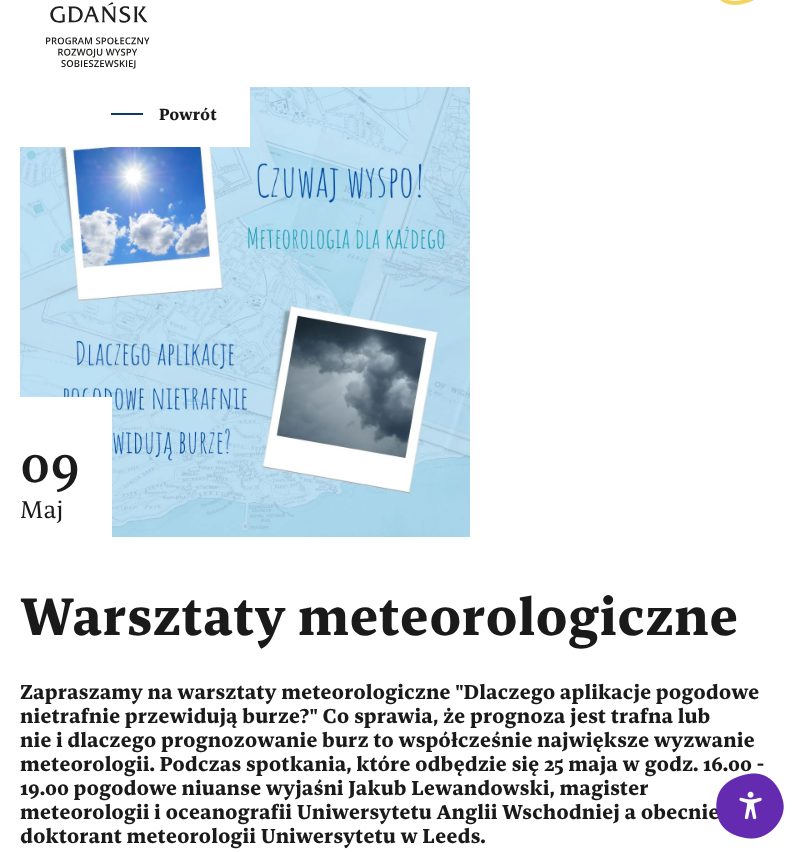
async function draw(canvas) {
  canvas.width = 796;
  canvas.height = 852;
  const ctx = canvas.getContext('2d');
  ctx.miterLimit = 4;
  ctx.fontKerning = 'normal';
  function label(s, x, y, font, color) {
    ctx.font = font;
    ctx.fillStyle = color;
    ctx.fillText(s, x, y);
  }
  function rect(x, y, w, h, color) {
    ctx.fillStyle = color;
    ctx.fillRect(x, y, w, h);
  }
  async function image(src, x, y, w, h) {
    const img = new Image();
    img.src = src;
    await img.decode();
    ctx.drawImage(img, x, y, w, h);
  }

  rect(0, 0, 796, 852, '#fff');
  await image('assets/img1.png', 46, 2, 104, 67);
  await image('assets/img2.png', 720, 0, 34, 5);
  await image('assets/img3.png', 20, 87, 450, 450);
  rect(20, 87, 230, 60, '#fff');
  rect(111, 113, 32, 2, '#0d3b66');
  label('Powrót', 159, 120, 'bold 16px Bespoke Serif', '#1a1a1a');
  rect(20, 397, 92, 140, '#fff');
  label('09', 20, 482, '500 52px Bespoke Serif', '#1a1a1a');
  label('Maj', 20, 518, '24px Bespoke Serif', '#1a1a1a');
  label('Warsztaty meteorologiczne', 20, 635, 'bold 52px Bespoke Serif', '#1a1a1a');
  label('Zapraszamy na warsztaty meteorologiczne "Dlaczego aplikacje pogodowe', 20, 699, 'bold 20px Bespoke Serif', '#1a1a1a');
  label('nietrafnie przewidują burze?" Co sprawia, że prognoza jest trafna lub', 20, 723, 'bold 20px Bespoke Serif', '#1a1a1a');
  label('nie i dlaczego prognozowanie burz to współcześnie największe wyzwanie', 20, 747, 'bold 20px Bespoke Serif', '#1a1a1a');
  label('meteorologii. Podczas spotkania, które odbędzie się 25 maja w godz. 16.00 -', 20, 771, 'bold 20px Bespoke Serif', '#1a1a1a');
  label('19.00 pogodowe niuanse wyjaśni Jakub Lewandowski, magister', 20, 795, 'bold 20px Bespoke Serif', '#1a1a1a');
  label('meteorologii i oceanografii Uniwersytetu Anglii Wschodniej a obecnie', 20, 819, 'bold 20px Bespoke Serif', '#1a1a1a');
  label('doktorant meteorologii Uniwersytetu w Leeds.', 20, 843, 'bold 20px Bespoke Serif', '#1a1a1a');
  await image('assets/img4.png', 716, 773, 68, 66);
}

draw(document.querySelector('canvas'));
